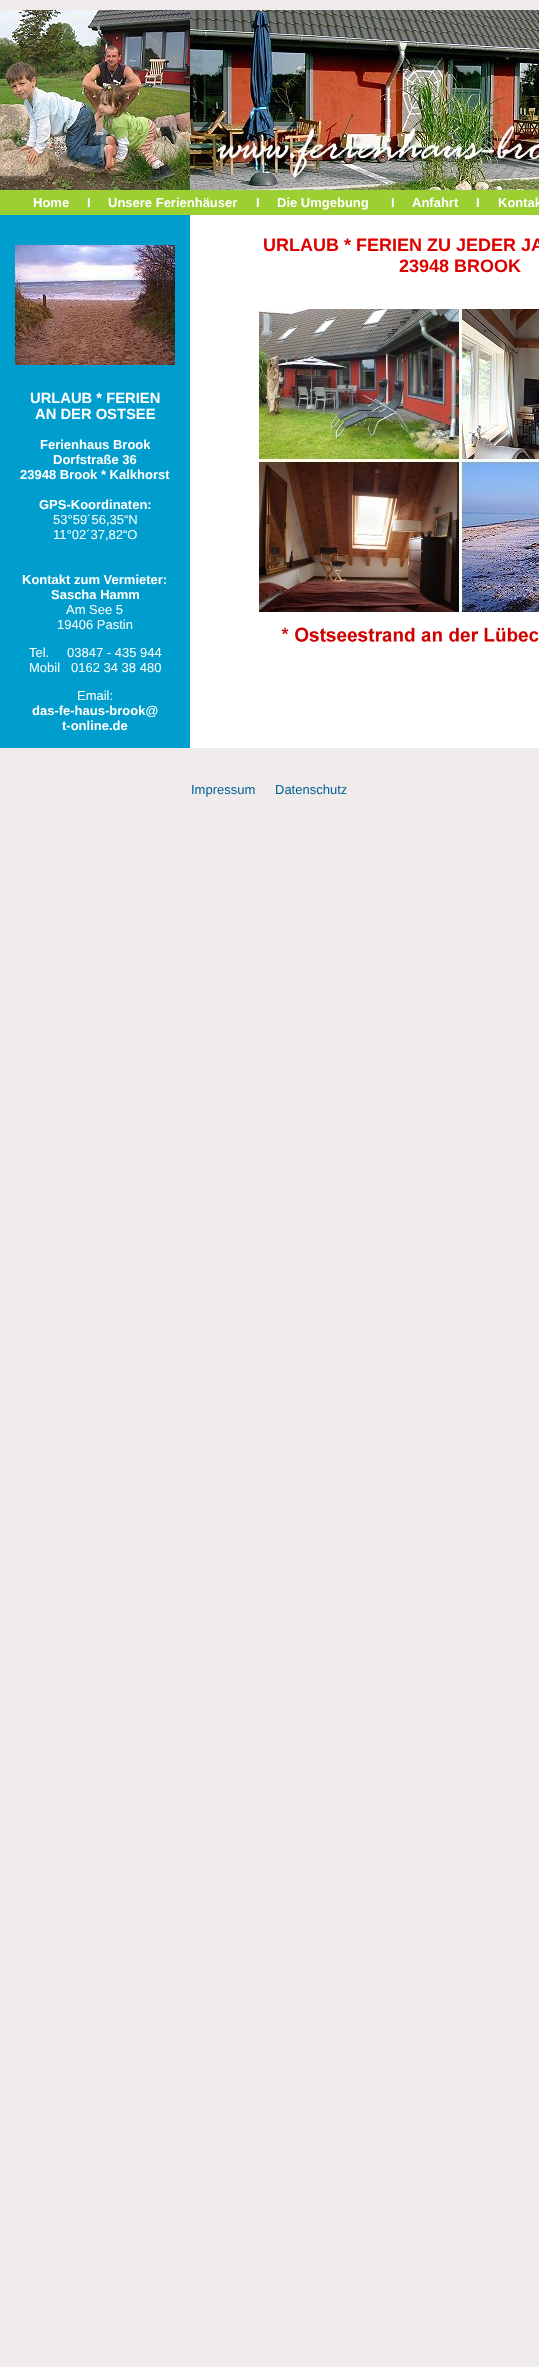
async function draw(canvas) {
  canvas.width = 539;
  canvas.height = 2367;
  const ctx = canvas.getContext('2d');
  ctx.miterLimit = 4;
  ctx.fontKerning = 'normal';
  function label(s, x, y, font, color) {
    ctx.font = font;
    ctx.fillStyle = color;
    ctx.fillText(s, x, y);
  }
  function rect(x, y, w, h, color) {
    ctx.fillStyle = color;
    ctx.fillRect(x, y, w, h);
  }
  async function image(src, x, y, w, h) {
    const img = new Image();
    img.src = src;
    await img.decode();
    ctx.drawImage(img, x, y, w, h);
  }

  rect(0, 0, 539, 2367, '#f0eceb');
  await image('assets/img1.png', 0, 10, 190, 180);
  await image('assets/img2.png', 190, 10, 349, 180);
  rect(0, 190, 539, 25, '#9ccf31');
  label('Home', 33, 207, 'bold 13px Liberation Sans', '#fff');
  label('I', 87, 207, 'bold 13px Liberation Sans', '#fff');
  label('Unsere Ferienhäuser', 108, 207, 'bold 13px Liberation Sans', '#fff');
  label('I', 256, 207, 'bold 13px Liberation Sans', '#fff');
  label('Die Umgebung', 277, 207, 'bold 13px Liberation Sans', '#fff');
  label('I', 391, 207, 'bold 13px Liberation Sans', '#fff');
  label('Anfahrt', 412, 207, 'bold 13px Liberation Sans', '#fff');
  label('I', 476, 207, 'bold 13px Liberation Sans', '#fff');
  label('Kontak', 498, 207, 'bold 13px Liberation Sans', '#fff');
  rect(0, 215, 190, 533, '#009ece');
  rect(190, 215, 349, 533, '#fff');
  label('URLAUB * FERIEN ZU JEDER JA', 263, 251, 'bold 18px Liberation Sans', '#df0000');
  label('23948 BROOK', 399, 272, 'bold 18px Liberation Sans', '#df0000');
  await image('assets/img3.png', 259, 309, 280, 303);
  await image('assets/img4.png', 281, 627, 258, 15);
  await image('assets/img5.png', 15, 245, 160, 120);
  label('URLAUB * FERIEN', 30, 403, 'bold 14.75px Liberation Sans', '#fff');
  label('AN DER OSTSEE', 35, 419, 'bold 14.75px Liberation Sans', '#fff');
  label('Ferienhaus Brook', 40, 449, 'bold 13px Liberation Sans', '#fff');
  label('Dorfstraße 36', 53, 464, 'bold 13px Liberation Sans', '#fff');
  label('23948 Brook * Kalkhorst', 20, 479, 'bold 13px Liberation Sans', '#fff');
  label('GPS-Koordinaten:', 39, 509, 'bold 13px Liberation Sans', '#fff');
  label('53°59´56,35“N', 53, 524, '13px Liberation Sans', '#fff');
  label('11°02´37,82“O', 53, 539, '13px Liberation Sans', '#fff');
  label('Kontakt zum Vermieter:', 22, 584, 'bold 13px Liberation Sans', '#fff');
  label('Sascha Hamm', 51, 599, 'bold 13px Liberation Sans', '#fff');
  label('Am See 5', 66, 614, '13px Liberation Sans', '#fff');
  label('19406 Pastin', 57, 629, '13px Liberation Sans', '#fff');
  label('Tel.', 29, 657, '13px Liberation Sans', '#fff');
  label('03847 - 435 944', 67, 657, '13px Liberation Sans', '#fff');
  label('Mobil', 29, 672, '13px Liberation Sans', '#fff');
  label('0162 34 38 480', 71, 672, '13px Liberation Sans', '#fff');
  label('Email:', 77, 700, '13px Liberation Sans', '#fff');
  label('das-fe-haus-brook@', 32, 715, 'bold 13px Liberation Sans', '#fff');
  label('t-online.de', 62, 730, 'bold 13px Liberation Sans', '#fff');
  label('Impressum', 191, 794, '13px Liberation Sans', '#005d95');
  label('Datenschutz', 275, 794, '13px Liberation Sans', '#005d95');
}

draw(document.querySelector('canvas'));
